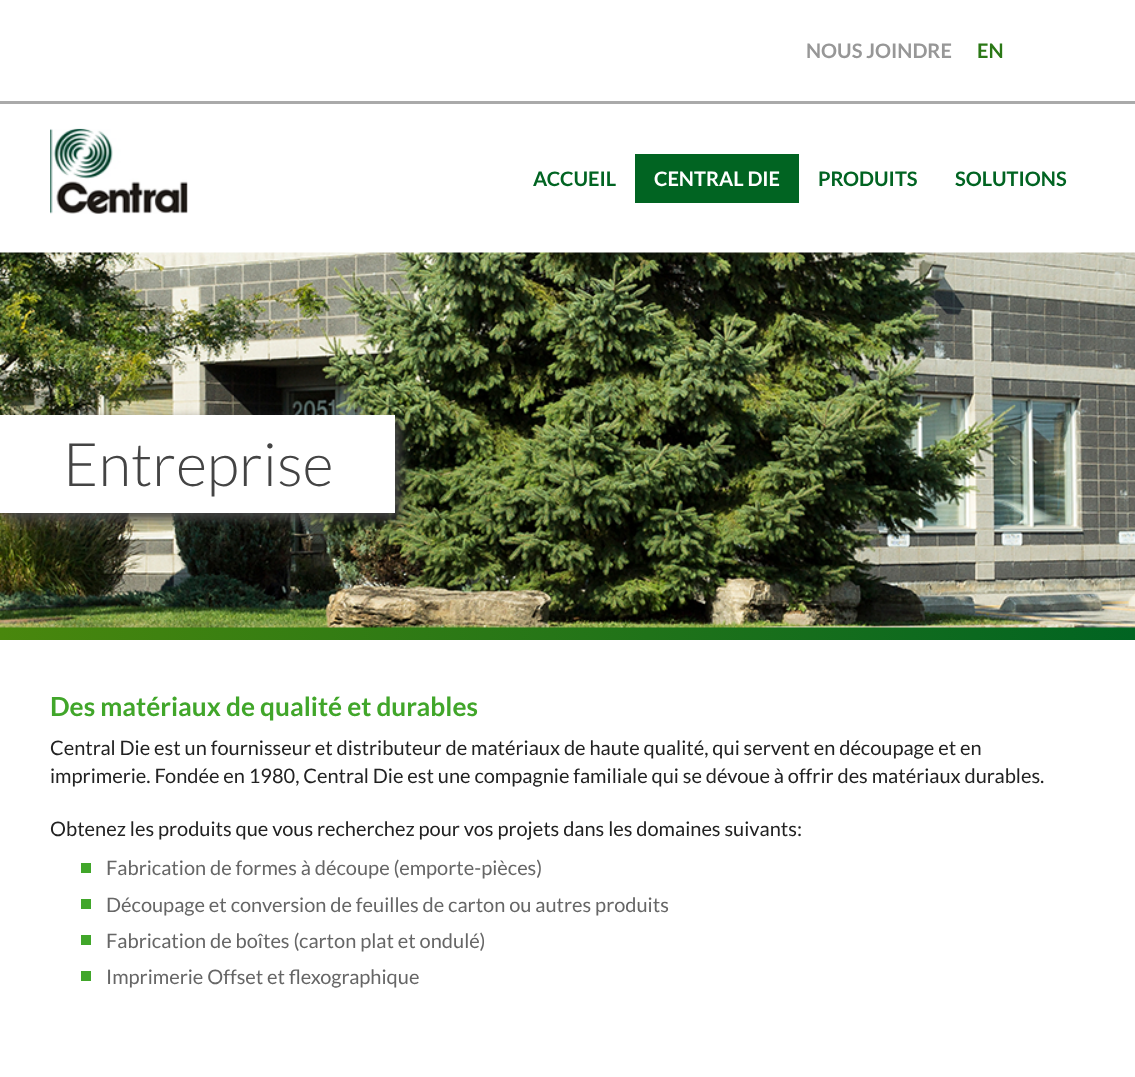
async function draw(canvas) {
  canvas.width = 1135;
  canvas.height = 1077;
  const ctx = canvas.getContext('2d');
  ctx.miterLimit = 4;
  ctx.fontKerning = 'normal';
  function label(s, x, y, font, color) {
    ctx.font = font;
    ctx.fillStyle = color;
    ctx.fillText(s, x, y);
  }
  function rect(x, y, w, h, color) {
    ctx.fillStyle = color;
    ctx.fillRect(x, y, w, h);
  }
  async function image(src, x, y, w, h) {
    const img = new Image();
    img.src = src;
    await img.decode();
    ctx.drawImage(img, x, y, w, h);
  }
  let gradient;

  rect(0, 0, 1135, 1077, '#fff');
  rect(0, 101, 1135, 3, '#aaa');
  label('NOUS JOINDRE', 806, 58, 'bold 20px Lato', '#979797');
  label('EN', 977, 58, 'bold 20px Lato', '#2b7816');
  await image('assets/img1.png', 50, 128, 138, 86);
  label('ACCUEIL', 533, 186, 'bold 20px Lato', '#016422');
  rect(635, 154, 164, 49, '#016422');
  label('CENTRAL DIE', 654, 186, 'bold 20px Lato', '#fff');
  label('PRODUITS', 818, 186, 'bold 20px Lato', '#016422');
  label('SOLUTIONS', 955, 186, 'bold 20px Lato', '#016422');
  gradient = ctx.createLinearGradient(0, 446, 1135, 446);
  gradient.addColorStop(0, '#49870d');
  gradient.addColorStop(1, '#016422');
  ctx.fillStyle = gradient;
  ctx.fillRect(0, 627, 1135, 13);
  await image('assets/img2.png', 0, 252, 1135, 376);
  ctx.fillStyle = '#444';
  ctx.filter = 'blur(6px)';
  ctx.beginPath();
  ctx.rect(6, 421, 395, 98);
  ctx.fill();
  ctx.filter = 'none';
  rect(0, 415, 395, 98, '#fff');
  label('Entreprise', 63, 486, '300 60px Lato', '#444');
  label('Des matériaux de qualité et durables', 50, 716, 'bold 26.25px Lato', '#41a62a');
  label('Central Die est un fournisseur et distributeur de matériaux de haute qualité, qui servent en découpage et en', 50, 755, '20px Lato', '#222');
  label('imprimerie. Fondée en 1980, Central Die est une compagnie familiale qui se dévoue à offrir des matériaux durables.', 50, 783, '20px Lato', '#222');
  label('Obtenez les produits que vous recherchez pour vos projets dans les domaines suivants:', 50, 836, '20px Lato', '#222');
  rect(81, 863, 10, 10, '#41a62a');
  label('Fabrication de formes à découpe (emporte-pièces)', 106, 875, '20px Lato', '#666');
  rect(81, 899, 10, 10, '#41a62a');
  label('Découpage et conversion de feuilles de carton ou autres produits', 106, 912, '20px Lato', '#666');
  rect(81, 935, 10, 10, '#41a62a');
  label('Fabrication de boîtes (carton plat et ondulé)', 106, 948, '20px Lato', '#666');
  rect(81, 971, 10, 10, '#41a62a');
  label('Imprimerie Offset et flexographique', 106, 984, '20px Lato', '#666');
}

draw(document.querySelector('canvas'));
